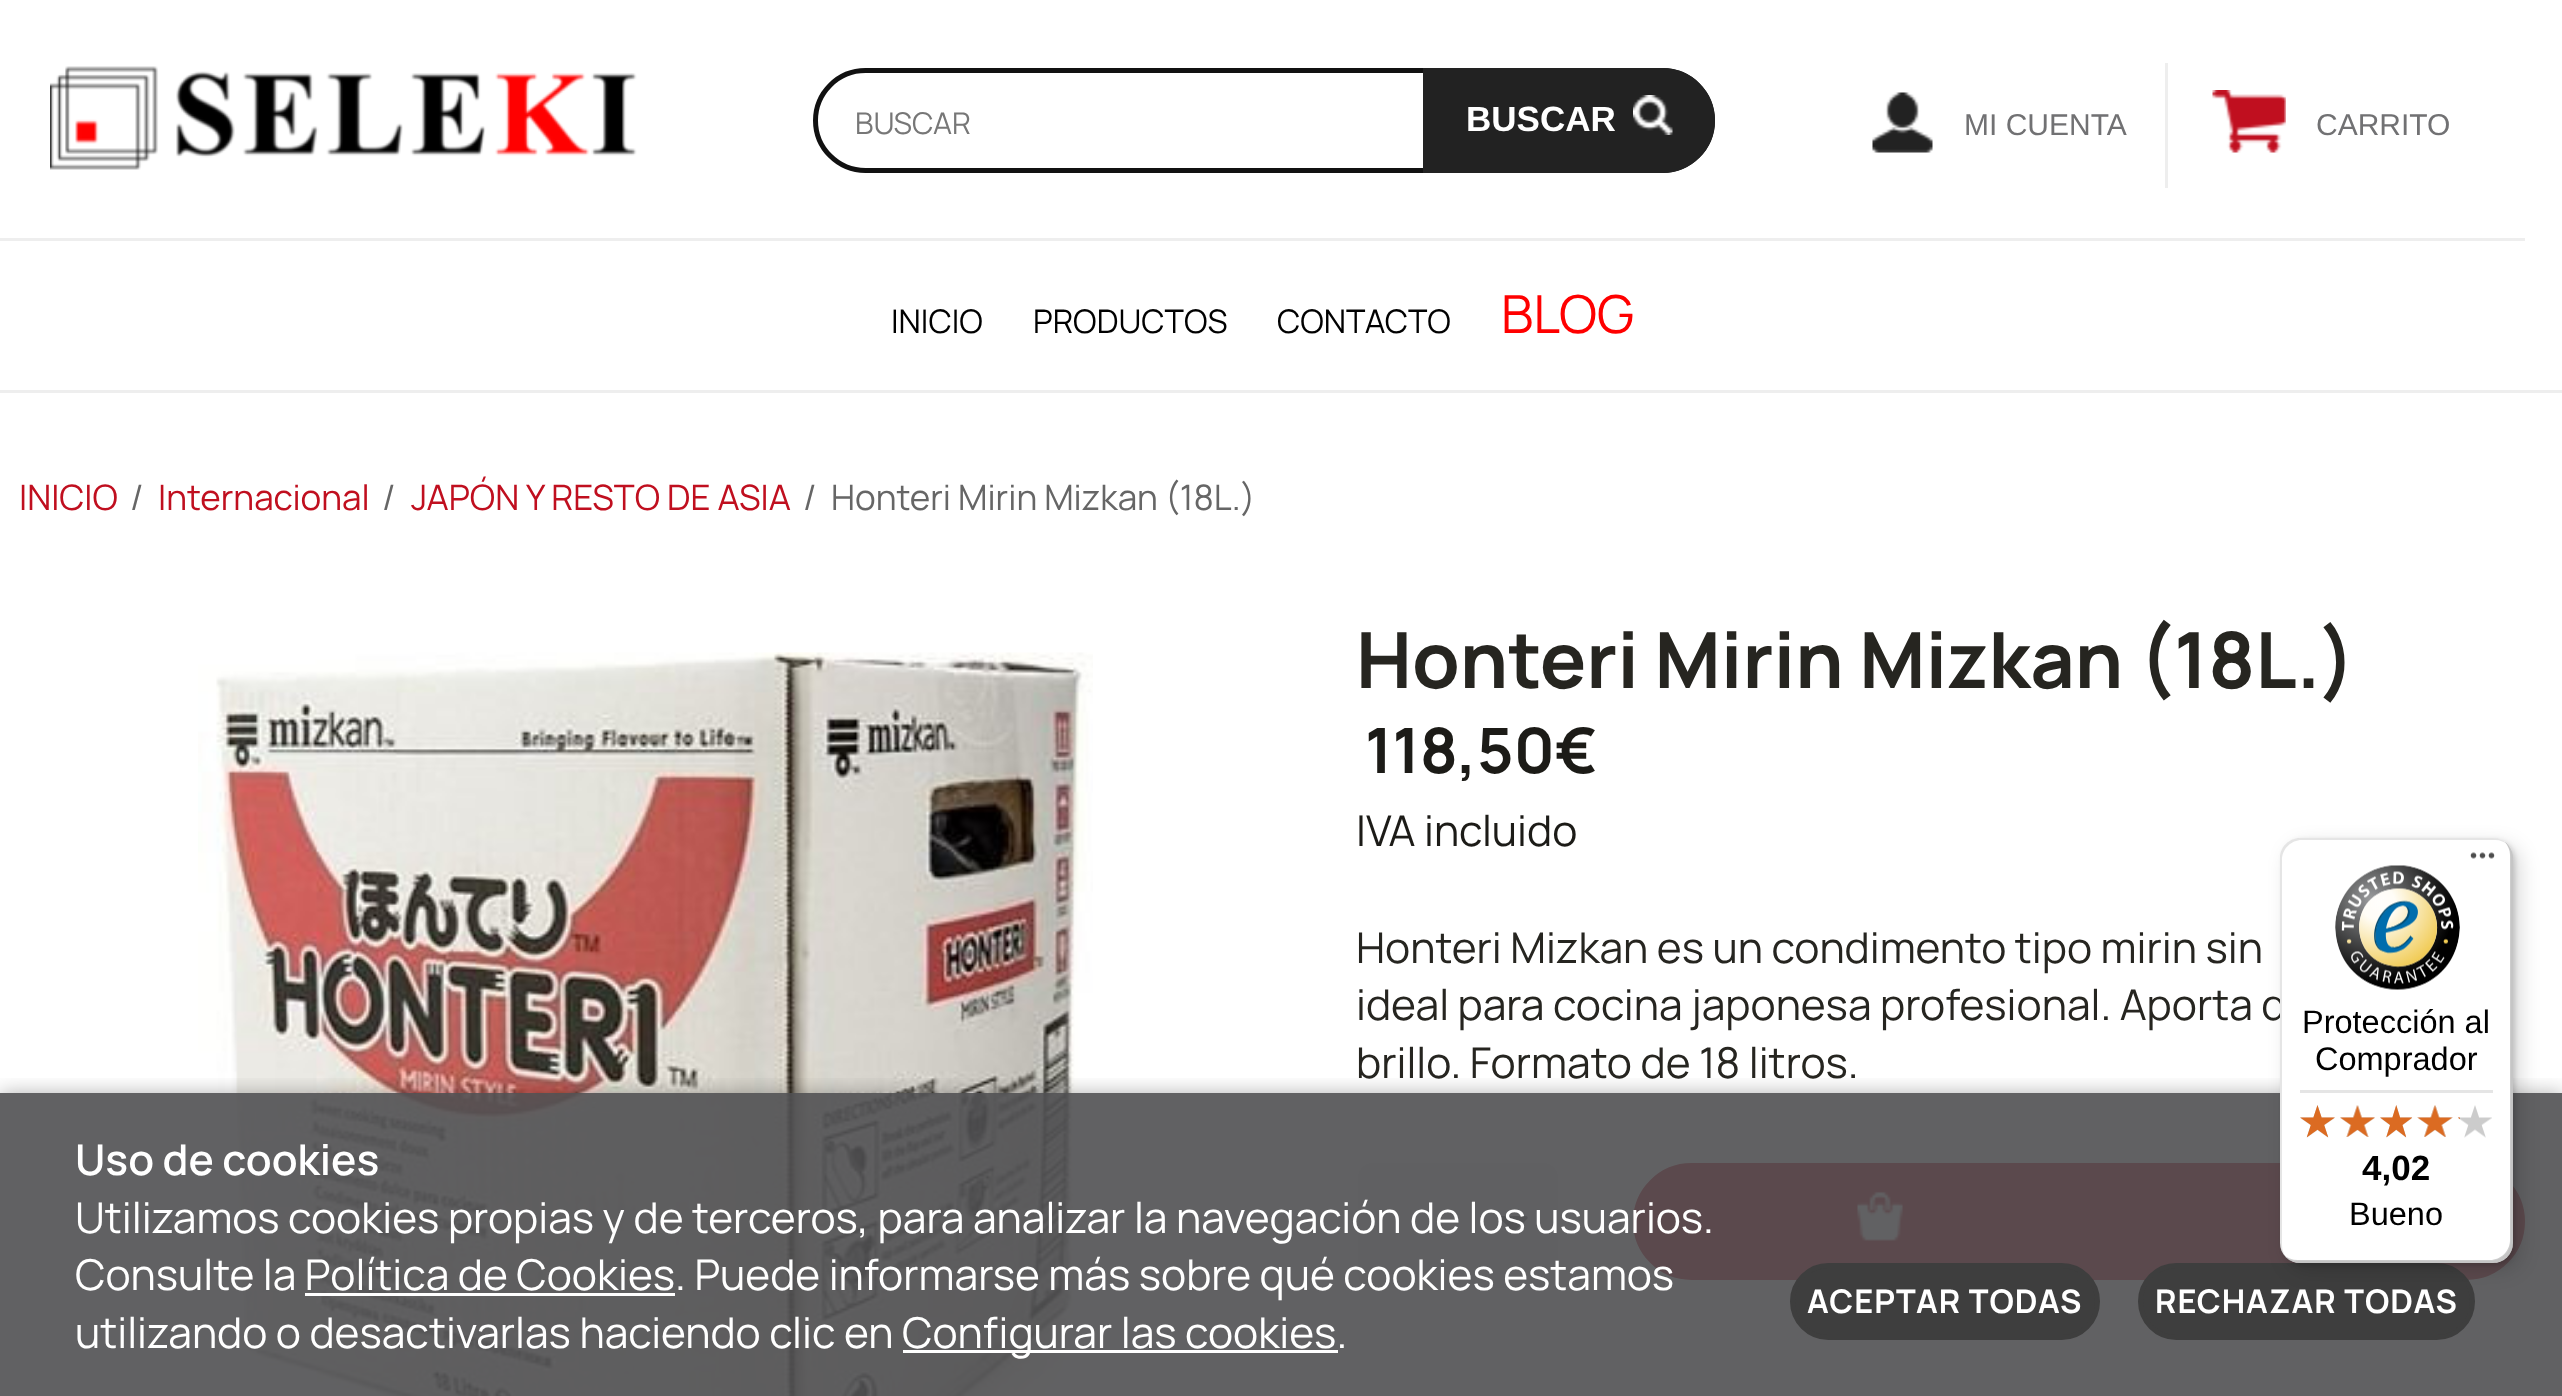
async function draw(canvas) {
  canvas.width = 2562;
  canvas.height = 1396;
  const ctx = canvas.getContext('2d');
  ctx.miterLimit = 4;
  ctx.fontKerning = 'normal';
  function label(s, x, y, font, color) {
    ctx.font = font;
    ctx.fillStyle = color;
    ctx.fillText(s, x, y);
  }
  function rect(x, y, w, h, color) {
    ctx.fillStyle = color;
    ctx.fillRect(x, y, w, h);
  }
  function roundedRect(x, y, w, h, r, color) {
    ctx.fillStyle = color;
    ctx.beginPath();
    ctx.roundRect(x, y, w, h, r);
    ctx.fill();
  }
  async function image(src, x, y, w, h) {
    const img = new Image();
    img.src = src;
    await img.decode();
    ctx.drawImage(img, x, y, w, h);
  }
  let path;

  rect(0, 0, 2562, 1396, '#fff');
  rect(0, 390, 2562, 3, '#eee');
  await image('assets/img1.png', 50, 66, 587, 104);
  ctx.beginPath();
  ctx.roundRect(815.5, 70.5, 897, 100, 50);
  ctx.strokeStyle = '#111';
  ctx.lineWidth = 5;
  ctx.stroke();
  label('BUSCAR', 855, 134, '30px Manrope', '#777');
  ctx.fillStyle = '#222';
  ctx.beginPath();
  ctx.roundRect(1423, 68, 292, 105, [0, 52.5, 52.5, 0]);
  ctx.fill();
  label('BUSCAR', 1466, 131, 'bold 35px Liberation Sans', '#fff');
  await image('assets/img2.png', 1633, 95, 40, 40);
  rect(2165, 63, 3, 125, '#eee');
  await image('assets/img3.png', 1872, 92, 61, 61);
  label('MI CUENTA', 1964, 135, '30px Liberation Sans', '#717173');
  await image('assets/img4.png', 2212, 90, 74, 63);
  label('CARRITO', 2316, 135, '30px Liberation Sans', '#717173');
  label('INICIO', 891, 333, '32.5px Manrope', '#000');
  label('PRODUCTOS', 1033, 333, '32.5px Manrope', '#000');
  label('CONTACTO', 1277, 333, '32.5px Manrope', '#000');
  label('BLOG', 1501, 333, '52.5px Manrope', '#f00');
  rect(0, 238, 2525, 3, '#eee');
  label('INICIO', 19, 510, '35px Manrope', '#c00f1f');
  label('/', 130, 510, '35px Manrope', '#666');
  label('Internacional', 158, 510, '35px Manrope', '#c00f1f');
  label('/', 382, 510, '35px Manrope', '#666');
  label('JAPÓN Y RESTO DE ASIA', 411, 510, '35px Manrope', '#c00f1f');
  label('/', 803, 510, '35px Manrope', '#666');
  label('Honteri Mirin Mizkan (18L.)', 831, 510, '35px Manrope', '#666');
  await image('assets/img5.png', 198, 652, 895, 744);
  label('Honteri Mirin Mizkan (18L.)', 1356, 688, 'bold 77.5px Manrope', '#262520');
  label('118,50€', 1365, 773, 'bold 62.5px Manrope', '#1c1b17');
  label('IVA incluido', 1356, 846, '42.5px Manrope', '#1c1b17');
  label('Honteri Mizkan es un condimento tipo mirin sin', 1356, 963, '42.5px Manrope', '#262520');
  label('ideal para cocina japonesa profesional. Aporta d', 1356, 1020, '42.5px Manrope', '#262520');
  label('brillo. Formato de 18 litros.', 1356, 1078, '42.5px Manrope', '#262520');
  roundedRect(1358, 1163, 200, 125, 15, '#f2f2f2');
  await image('assets/img6.png', 1500, 1216, 28, 16);
  ctx.beginPath();
  ctx.roundRect(1359.5, 1164.5, 197, 122, 13.5);
  ctx.strokeStyle = '#f2f2f2';
  ctx.lineWidth = 3;
  ctx.stroke();
  ctx.fillStyle = '#c00f1f';
  ctx.beginPath();
  ctx.roundRect(1635.5, 1165.5, 887, 112, 56);
  ctx.fill();
  ctx.strokeStyle = '#c00f1f';
  ctx.lineWidth = 5;
  ctx.stroke();
  await image('assets/img7.png', 1857, 1191, 46, 50);
  ctx.save();
  ctx.beginPath();
  ctx.rect(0, 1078, 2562, 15);
  ctx.clip();
  ctx.fillStyle = '#0000004d';
  ctx.filter = 'blur(10px)';
  ctx.beginPath();
  ctx.rect(0, 1093, 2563, 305);
  ctx.fill();
  ctx.filter = 'none';
  ctx.restore();
  rect(0, 1093, 2562, 303, '#505052e6');
  ctx.fillStyle = '#3e3e3e';
  ctx.beginPath();
  ctx.roundRect(2140.5, 1265.5, 332, 72, 36);
  ctx.fill();
  ctx.strokeStyle = '#3e3e3e';
  ctx.stroke();
  ctx.fillStyle = '#00000026';
  ctx.filter = 'blur(10px)';
  ctx.beginPath();
  ctx.roundRect(2288, 845, 232, 425, 20);
  ctx.fill();
  ctx.filter = 'none';
  ctx.filter = 'blur(2.5px)';
  ctx.beginPath();
  ctx.roundRect(2283, 840, 232, 425, 20);
  ctx.fill();
  ctx.filter = 'none';
  roundedRect(2280, 838, 233, 425, 20, '#fff');
  ctx.fillStyle = '#0000001a';
  path = new Path2D('M2302 840H2495C2500 840 2505 842 2508 845C2505 841 2499 838 2493 838H2300C2289 838 2280 847 2280 858V1243C2280 1249 2283 1255 2287 1258C2284 1255 2282 1250 2282 1245V860C2282 849 2291 840 2302 840Z');
  ctx.fill(path);
  ctx.fillStyle = '#00000033';
  path = new Path2D('M2283 1254C2287 1259 2293 1263 2300 1263H2493C2504 1263 2513 1254 2513 1243V858C2513 852 2510 846 2505 842C2508 846 2510 850 2510 855V1240C2510 1251 2501 1260 2490 1260H2298C2292 1260 2287 1258 2283 1254Z');
  ctx.fill(path);
  ctx.fillStyle = '#32323233';
  path = new Path2D('M2285 1256C2288 1260 2294 1263 2300 1263H2493C2504 1263 2513 1254 2513 1243V858C2513 852 2510 846 2506 843C2509 846 2511 851 2511 856V1241C2511 1252 2502 1261 2491 1261H2298C2293 1261 2288 1259 2285 1256Z');
  ctx.fill(path);
  ctx.fillStyle = '#ffffff4d';
  path = new Path2D('M2282 1251C2285 1258 2292 1263 2300 1263H2493C2504 1263 2513 1254 2513 1243V858C2513 852 2510 846 2506 843C2509 846 2511 851 2511 856V1241C2511 1252 2502 1261 2491 1261H2299C2292 1261 2285 1257 2282 1251Z');
  ctx.fill(path);
  await image('assets/img8.png', 2470, 852, 25, 7);
  await image('assets/img9.png', 2335, 865, 125, 125);
  label('Protección al', 2302, 1033, '32.5px Liberation Sans', '#000');
  label('Comprador', 2315, 1070, '32.5px Liberation Sans', '#000');
  rect(2300, 1090, 193, 3, '#e5e5e5');
  await image('assets/img10.png', 2300, 1105, 35, 33);
  await image('assets/img11.png', 2340, 1105, 35, 32);
  await image('assets/img12.png', 2380, 1105, 32, 33);
  await image('assets/img13.png', 2417, 1105, 36, 32);
  await image('assets/img14.png', 2458, 1105, 34, 33);
  await image('assets/img15.png', 2300, 1105, 35, 33);
  await image('assets/img16.png', 2340, 1105, 35, 32);
  await image('assets/img17.png', 2380, 1105, 33, 33);
  await image('assets/img18.png', 2417, 1105, 36, 32);
  await image('assets/img19.png', 2458, 1117, 2, 2);
  label('4,02', 2362, 1180, 'bold 35px Liberation Sans', '#000');
  label('Bueno', 2349, 1225, '32.5px Liberation Sans', '#000');
  label('Uso de cookies', 75, 1175, '600 42.5px Manrope', '#fff');
  label('Utilizamos cookies propias y de terceros, para analizar la navegación de los usuarios.', 75, 1233, '42.5px Manrope', '#fff');
  label('Consulte la Política de Cookies. Puede informarse más sobre qué cookies estamos', 75, 1290, '42.5px Manrope', '#fff');
  rect(305, 1293, 370, 3, '#fff');
  label('utilizando o desactivarlas haciendo clic en', 75, 1348, '42.5px Manrope', '#fff');
  rect(903, 1350, 435, 3, '#fff');
  label('Configurar las cookies.', 902, 1348, '42.5px Manrope', '#fff');
  ctx.fillStyle = '#3e3e3e';
  ctx.beginPath();
  ctx.roundRect(1792.5, 1265.5, 305, 72, 36);
  ctx.fill();
  ctx.stroke();
  ctx.letterSpacing = '1px';
  label('ACEPTAR TODAS', 1807, 1313, 'bold 32.5px Manrope', '#fff');
  label('RECHAZAR TODAS', 2155, 1313, 'bold 32.5px Manrope', '#fff');
}

draw(document.querySelector('canvas'));
